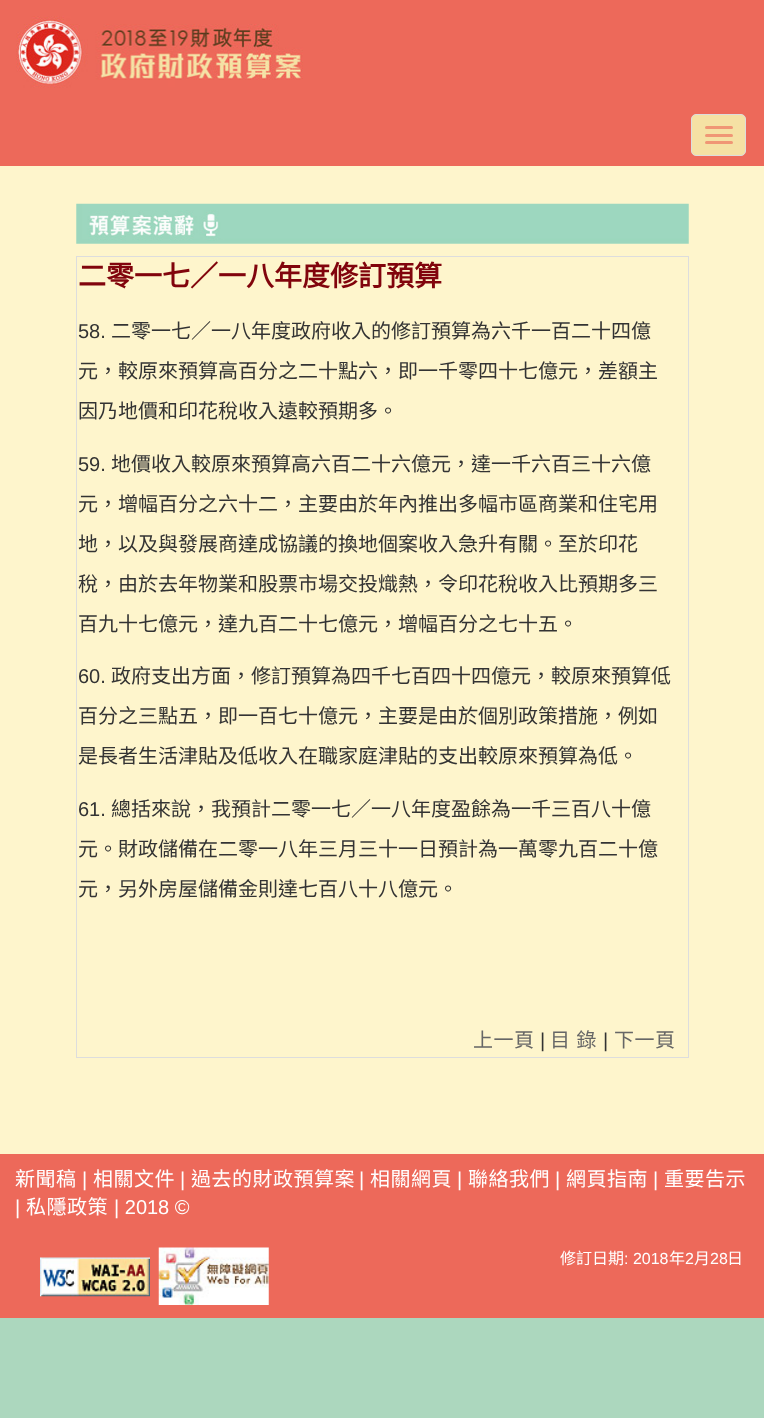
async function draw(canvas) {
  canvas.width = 764;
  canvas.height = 1418;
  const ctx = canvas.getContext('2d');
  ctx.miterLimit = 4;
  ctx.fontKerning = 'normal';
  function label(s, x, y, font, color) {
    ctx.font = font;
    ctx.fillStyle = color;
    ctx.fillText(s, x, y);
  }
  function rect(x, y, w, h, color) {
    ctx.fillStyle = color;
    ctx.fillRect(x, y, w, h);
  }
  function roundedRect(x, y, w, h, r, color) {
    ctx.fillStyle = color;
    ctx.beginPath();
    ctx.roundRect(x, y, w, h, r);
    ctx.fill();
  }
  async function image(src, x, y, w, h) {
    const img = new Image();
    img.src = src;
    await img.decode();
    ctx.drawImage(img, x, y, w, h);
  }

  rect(0, 0, 764, 1418, '#acd7be');
  await image('assets/img1.png', 0, 0, 764, 100);
  rect(0, 100, 764, 66, '#ed695a');
  ctx.fillStyle = '#f5e1a4';
  ctx.beginPath();
  ctx.roundRect(691.5, 114.5, 54, 41, 4.5);
  ctx.fill();
  ctx.strokeStyle = '#ddd';
  ctx.stroke();
  roundedRect(705, 126, 28, 3, 1.5, '#f09675');
  roundedRect(705, 134, 28, 3, 1.5, '#f09675');
  roundedRect(705, 141, 28, 3, 1.5, '#f09675');
  rect(0, 166, 764, 988, '#fef5cc');
  await image('assets/img2.png', 76, 203, 613, 41);
  ctx.strokeRect(76.5, 256.5, 612, 801);
  label('二零一七／一八年度修訂預算', 78, 286, 'bold 28px Noto Sans CJK HK', '#81040c');
  label('58.', 78, 338, '20px Liberation Sans', '#333');
  label('二零一七／一八年度政府收入的修訂預算為六千一百二十四億', 111, 338, '20px Noto Sans CJK HK', '#333');
  label('元，較原來預算高百分之二十點六，即一千零四十七億元，差額主', 78, 378, '20px Noto Sans CJK HK', '#333');
  label('因乃地價和印花稅收入遠較預期多。', 78, 418, '20px Noto Sans CJK HK', '#333');
  label('59.', 78, 471, '20px Liberation Sans', '#333');
  label('地價收入較原來預算高六百二十六億元，達一千六百三十六億', 111, 471, '20px Noto Sans CJK HK', '#333');
  label('元，增幅百分之六十二，主要由於年內推出多幅市區商業和住宅用', 78, 511, '20px Noto Sans CJK HK', '#333');
  label('地，以及與發展商達成協議的換地個案收入急升有關。至於印花', 78, 551, '20px Noto Sans CJK HK', '#333');
  label('稅，由於去年物業和股票市場交投熾熱，令印花稅收入比預期多三', 78, 591, '20px Noto Sans CJK HK', '#333');
  label('百九十七億元，達九百二十七億元，增幅百分之七十五。', 78, 631, '20px Noto Sans CJK HK', '#333');
  label('60.', 78, 683, '20px Liberation Sans', '#333');
  label('政府支出方面，修訂預算為四千七百四十四億元，較原來預算低', 111, 683, '20px Noto Sans CJK HK', '#333');
  label('百分之三點五，即一百七十億元，主要是由於個別政策措施，例如', 78, 723, '20px Noto Sans CJK HK', '#333');
  label('是長者生活津貼及低收入在職家庭津貼的支出較原來預算為低。', 78, 763, '20px Noto Sans CJK HK', '#333');
  label('61.', 78, 816, '20px Liberation Sans', '#333');
  label('總括來說，我預計二零一七／一八年度盈餘為一千三百八十億', 111, 816, '20px Noto Sans CJK HK', '#333');
  label('元。財政儲備在二零一八年三月三十一日預計為一萬零九百二十億', 78, 856, '20px Noto Sans CJK HK', '#333');
  label('元，另外房屋儲備金則達七百八十八億元。', 78, 896, '20px Noto Sans CJK HK', '#333');
  ctx.letterSpacing = '0.5px';
  label('上一頁', 473, 1047, '20px Noto Sans CJK HK', '#666');
  ctx.letterSpacing = '0px';
  label('|', 540, 1047, '20px Liberation Sans', '#333');
  ctx.letterSpacing = '0.5px';
  ctx.wordSpacing = '1px';
  label('目 錄', 550, 1047, '20px Noto Sans CJK HK', '#666');
  ctx.letterSpacing = '0px';
  ctx.wordSpacing = '0px';
  label('|', 603, 1047, '20px Liberation Sans', '#333');
  ctx.letterSpacing = '0.5px';
  label('下一頁', 614, 1047, '20px Noto Sans CJK HK', '#666');
  rect(0, 1154, 764, 164, '#ed695a');
  label('新聞稿', 15, 1186, '20px Noto Sans CJK HK', '#fff');
  ctx.letterSpacing = '0px';
  label('|', 82, 1186, '20px Liberation Sans', '#fff');
  ctx.letterSpacing = '0.5px';
  label('相關文件', 93, 1186, '20px Noto Sans CJK HK', '#fff');
  ctx.letterSpacing = '0px';
  label('|', 180, 1186, '20px Liberation Sans', '#fff');
  ctx.letterSpacing = '0.5px';
  label('過去的財政預算案', 191, 1186, '20px Noto Sans CJK HK', '#fff');
  ctx.letterSpacing = '0px';
  label('|', 359, 1186, '20px Liberation Sans', '#fff');
  ctx.letterSpacing = '0.5px';
  label('相關網頁', 370, 1186, '20px Noto Sans CJK HK', '#fff');
  ctx.letterSpacing = '0px';
  label('|', 457, 1186, '20px Liberation Sans', '#fff');
  ctx.letterSpacing = '0.5px';
  label('聯絡我們', 468, 1186, '20px Noto Sans CJK HK', '#fff');
  ctx.letterSpacing = '0px';
  label('|', 555, 1186, '20px Liberation Sans', '#fff');
  ctx.letterSpacing = '0.5px';
  label('網頁指南', 566, 1186, '20px Noto Sans CJK HK', '#fff');
  ctx.letterSpacing = '0px';
  label('|', 653, 1186, '20px Liberation Sans', '#fff');
  ctx.letterSpacing = '0.5px';
  label('重要告示', 664, 1186, '20px Noto Sans CJK HK', '#fff');
  ctx.letterSpacing = '0px';
  label('|', 15, 1214, '20px Liberation Sans', '#fff');
  ctx.letterSpacing = '0.5px';
  label('私隱政策', 26, 1214, '20px Noto Sans CJK HK', '#fff');
  ctx.letterSpacing = '0px';
  label('| 2018 ©', 114, 1214, '20px Liberation Sans', '#fff');
  await image('assets/img3.png', 40, 1257, 110, 40);
  await image('assets/img4.png', 158, 1247, 111, 58);
  label('修訂日期', 560, 1264, '16px Noto Sans CJK HK', '#fff');
  label(': 2018', 624, 1264, '16px Liberation Sans', '#fff');
  label('年', 669, 1264, '16px Noto Sans CJK HK', '#fff');
  label('2', 685, 1264, '16px Liberation Sans', '#fff');
  label('月', 694, 1264, '16px Noto Sans CJK HK', '#fff');
  label('28', 710, 1264, '16px Liberation Sans', '#fff');
  label('日', 727, 1264, '16px Noto Sans CJK HK', '#fff');
}

draw(document.querySelector('canvas'));
